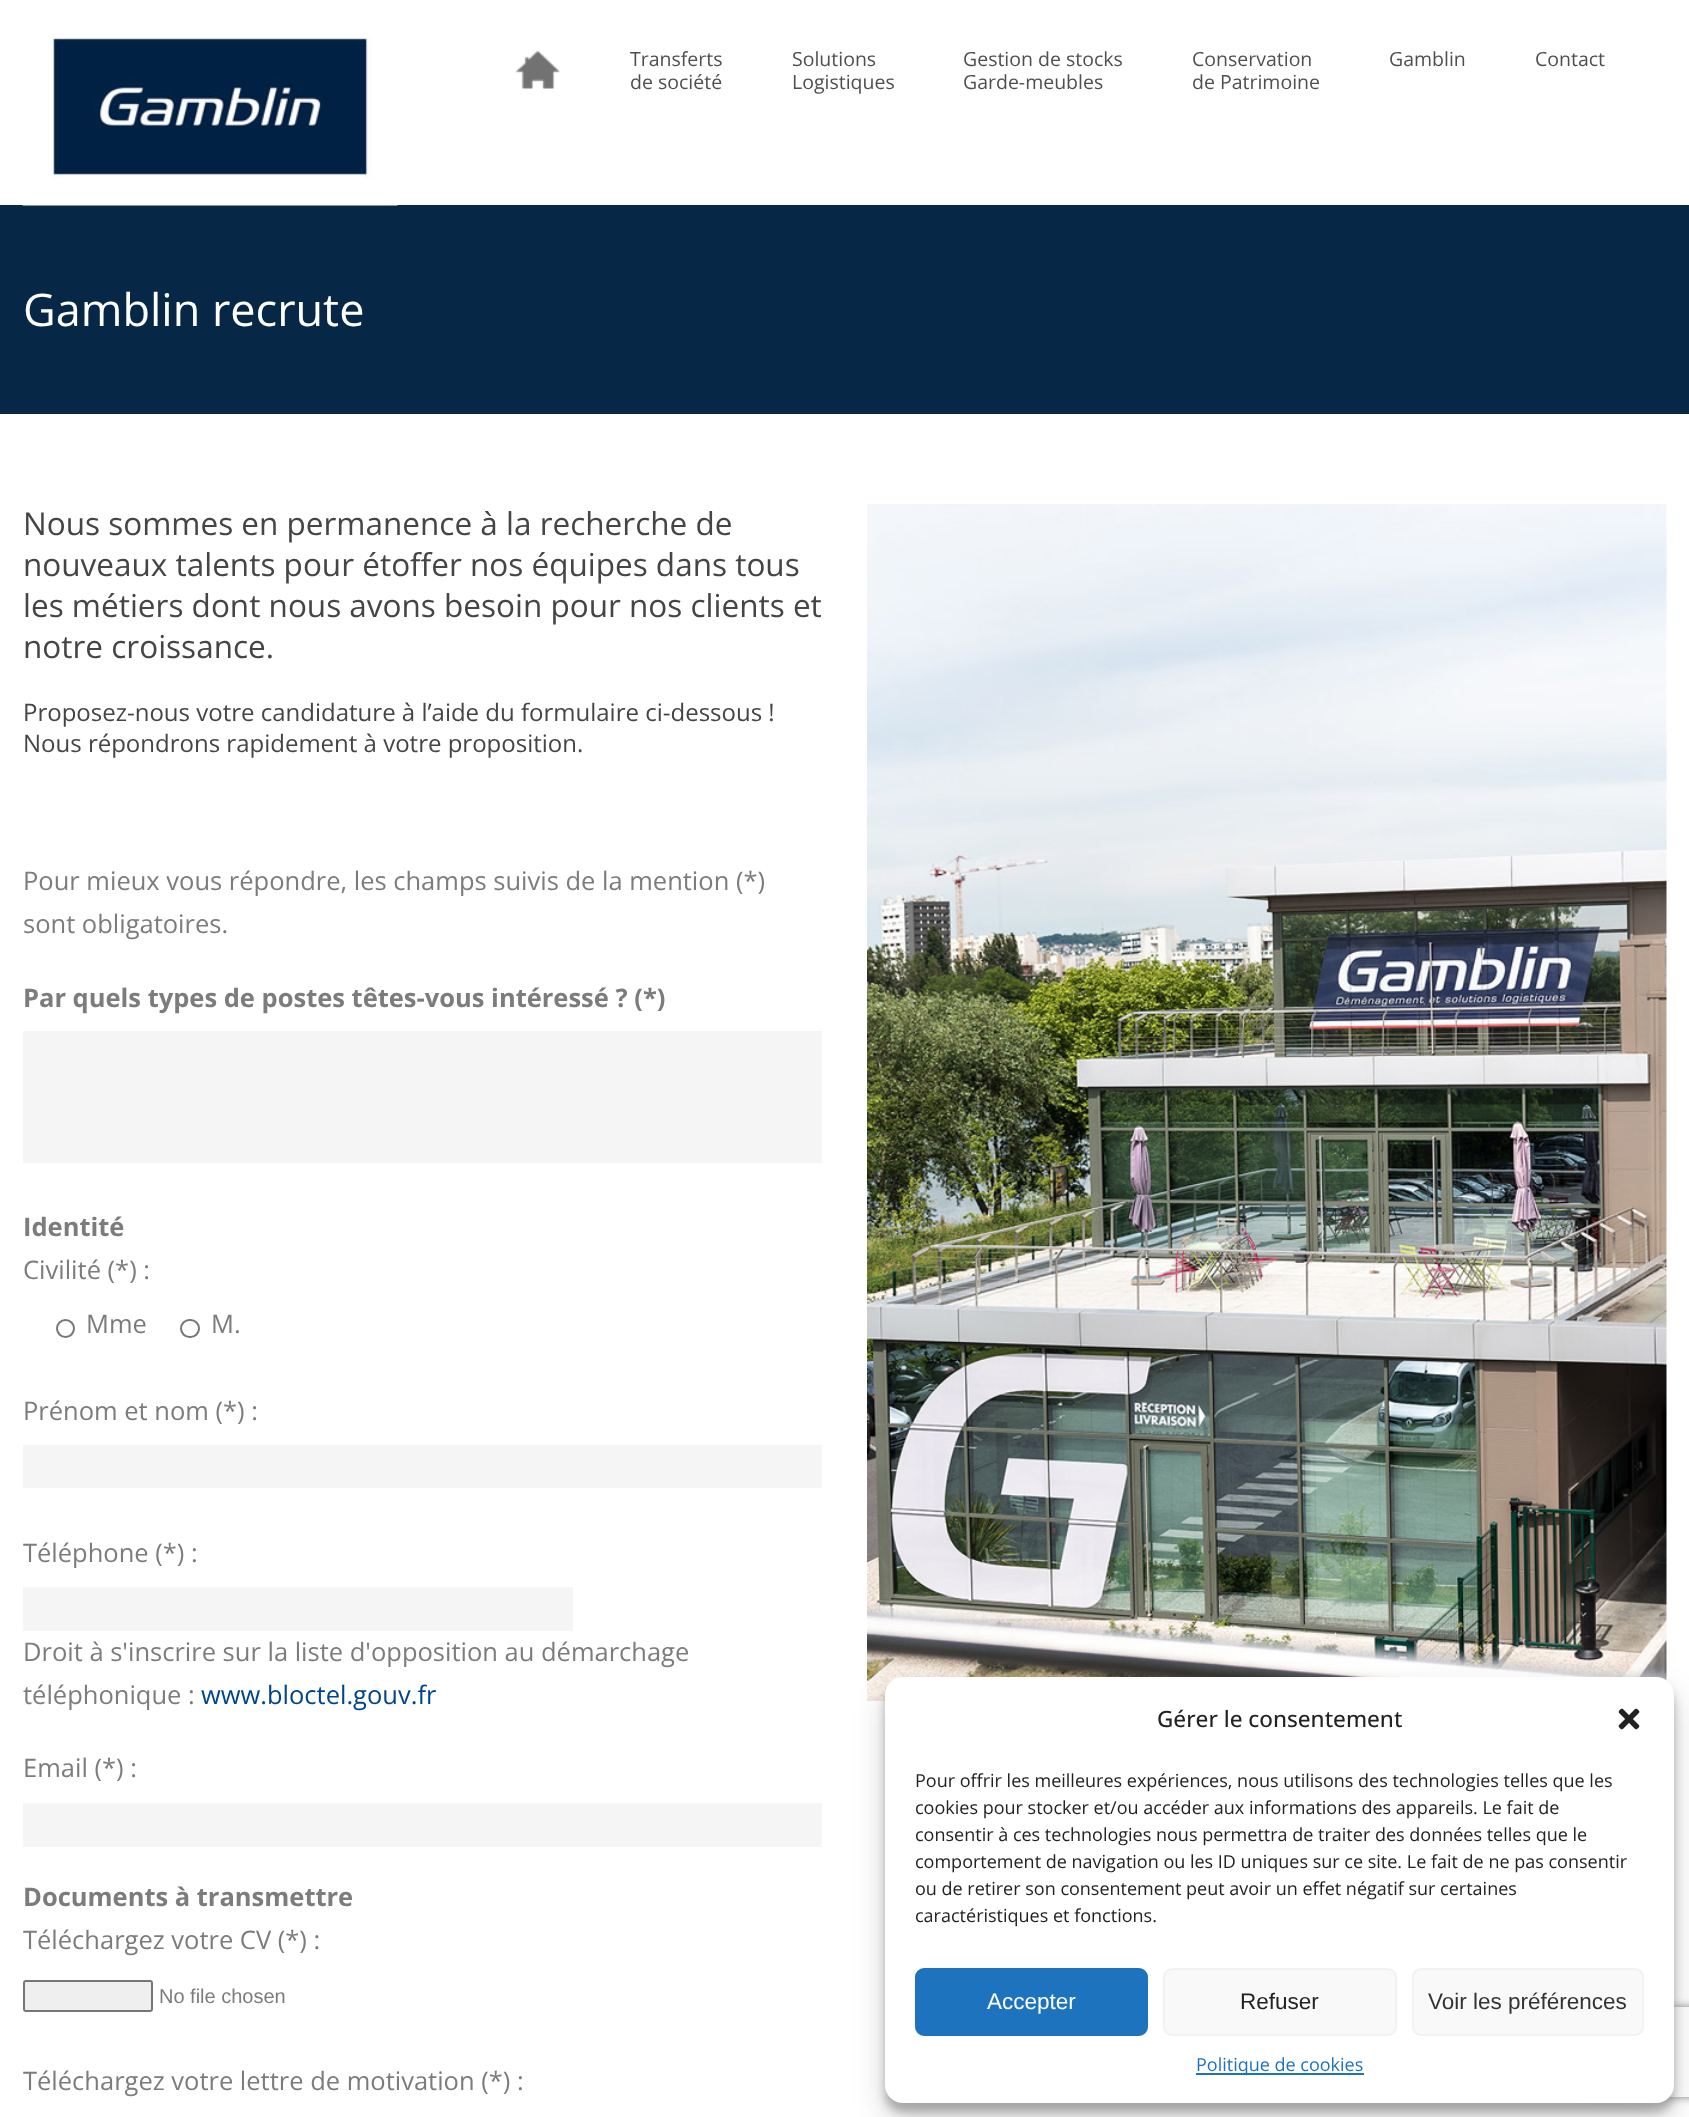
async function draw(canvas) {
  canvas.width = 1689;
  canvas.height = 2117;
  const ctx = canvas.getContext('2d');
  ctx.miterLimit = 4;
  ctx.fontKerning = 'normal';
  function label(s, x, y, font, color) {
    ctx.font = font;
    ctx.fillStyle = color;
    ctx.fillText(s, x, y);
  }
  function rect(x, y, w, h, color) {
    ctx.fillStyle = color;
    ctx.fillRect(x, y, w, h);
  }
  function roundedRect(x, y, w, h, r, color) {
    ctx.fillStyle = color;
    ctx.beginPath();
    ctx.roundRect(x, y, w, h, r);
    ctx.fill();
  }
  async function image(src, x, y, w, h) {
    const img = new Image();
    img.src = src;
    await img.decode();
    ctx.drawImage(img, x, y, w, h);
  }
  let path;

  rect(0, 0, 1689, 2117, '#fff');
  rect(0, 205, 1689, 209, '#062746');
  await image('assets/img1.png', 22, 37, 376, 169);
  await image('assets/img2.png', 516, 50, 44, 39);
  label('Transferts', 630, 66, '19.5px Open Sans', '#4f4f4f');
  label('de société', 630, 89, '19.5px Open Sans', '#4f4f4f');
  label('Solutions', 792, 66, '19.5px Open Sans', '#4f4f4f');
  label('Logistiques', 792, 89, '19.5px Open Sans', '#4f4f4f');
  label('Gestion de stocks', 963, 66, '19.5px Open Sans', '#4f4f4f');
  label('Garde-meubles', 963, 89, '19.5px Open Sans', '#4f4f4f');
  label('Conservation', 1192, 66, '19.5px Open Sans', '#4f4f4f');
  label('de Patrimoine', 1192, 89, '19.5px Open Sans', '#4f4f4f');
  label('Gamblin', 1389, 66, '19.5px Open Sans', '#4f4f4f');
  label('Contact', 1535, 66, '19.5px Open Sans', '#4f4f4f');
  label('Gamblin recrute', 23, 326, '45px Open Sans', '#fff');
  label('Nous sommes en permanence à la recherche de', 23, 535, '31.5px Open Sans', '#454545');
  label('nouveaux talents pour étoffer nos équipes dans tous', 23, 576, '31.5px Open Sans', '#454545');
  label('les métiers dont nous avons besoin pour nos clients et', 23, 617, '31.5px Open Sans', '#454545');
  label('notre croissance.', 23, 658, '31.5px Open Sans', '#454545');
  label('Proposez-nous votre candidature à l’aide du formulaire ci-dessous !', 23, 721, '24px Open Sans', '#454545');
  label('Nous répondrons rapidement à votre proposition.', 23, 752, '24px Open Sans', '#454545');
  label('Pour mieux vous répondre, les champs suivis de la mention (*)', 23, 890, '25.5px Open Sans', '#7c7c7c');
  label('sont obligatoires.', 23, 933, '25.5px Open Sans', '#7c7c7c');
  label('Par quels types de postes têtes-vous intéressé ? (*)', 23, 1007, 'bold 25.5px Open Sans', '#7c7c7c');
  rect(23, 1031, 799, 132, '#f5f5f5');
  label('Identité', 23, 1236, 'bold 25.5px Open Sans', '#7c7c7c');
  label('Civilité (*) :', 23, 1279, '25.5px Open Sans', '#7c7c7c');
  ctx.beginPath();
  ctx.arc(65.5, 1328.5, 8.5, 0, 2 * Math.PI);
  ctx.strokeStyle = '#767676';
  ctx.lineWidth = 2;
  ctx.stroke();
  label('Mme', 86, 1333, '25.5px Open Sans', '#7c7c7c');
  ctx.beginPath();
  ctx.roundRect(181, 1320, 18, 17, 8.5);
  ctx.stroke();
  label('M.', 211, 1333, '25.5px Open Sans', '#7c7c7c');
  label('Prénom et nom (*) :', 23, 1420, '25.5px Open Sans', '#7c7c7c');
  rect(23, 1445, 799, 43, '#f5f5f5');
  label('Téléphone (*) :', 23, 1562, '25.5px Open Sans', '#7c7c7c');
  rect(23, 1587, 550, 44, '#f5f5f5');
  label('Droit à s\'inscrire sur la liste d\'opposition au démarchage', 23, 1661, '25.5px Open Sans', '#7c7c7c');
  label('téléphonique :', 23, 1704, '25.5px Open Sans', '#7c7c7c');
  label('www.bloctel.gouv.fr', 201, 1704, '25.5px Open Sans', '#00458a');
  label('Email (*) :', 23, 1777, '25.5px Open Sans', '#7c7c7c');
  rect(23, 1803, 799, 44, '#f5f5f5');
  label('Documents à transmettre', 23, 1906, 'bold 25.5px Open Sans', '#7c7c7c');
  label('Téléchargez votre CV (*) :', 23, 1949, '25.5px Open Sans', '#7c7c7c');
  ctx.fillStyle = '#efefef';
  ctx.beginPath();
  ctx.roundRect(24, 1981, 128, 30, 2);
  ctx.fill();
  ctx.stroke();
  label('No file chosen', 159, 2003, '20px Liberation Sans', '#7c7c7c');
  label('Téléchargez votre lettre de motivation (*) :', 23, 2090, '25.5px Open Sans', '#7c7c7c');
  await image('assets/img3.png', 867, 504, 800, 1197);
  ctx.fillStyle = '#0000003b';
  ctx.filter = 'blur(4.5px)';
  ctx.beginPath();
  ctx.roundRect(885, 1686, 789, 426, 18);
  ctx.fill();
  ctx.filter = 'none';
  ctx.fillStyle = '#00000030';
  ctx.filter = 'blur(15px)';
  ctx.beginPath();
  ctx.roundRect(885, 1692, 789, 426, 18);
  ctx.fill();
  ctx.filter = 'none';
  ctx.save();
  path = new Path2D('M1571 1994H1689V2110H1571ZM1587 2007H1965C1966.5 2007 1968 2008.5 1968 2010V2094C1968 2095.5 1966.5 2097 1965 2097H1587C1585.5 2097 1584 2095.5 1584 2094V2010C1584 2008.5 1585.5 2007 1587 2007Z');
  ctx.clip(path, 'evenodd');
  ctx.fillStyle = '#808080';
  ctx.filter = 'blur(4px)';
  ctx.beginPath();
  ctx.roundRect(1584, 2007, 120, 90, 3);
  ctx.fill();
  ctx.filter = 'none';
  ctx.restore();
  roundedRect(885, 1677, 789, 426, 18, '#fff');
  label('Gérer le consentement', 1157, 1727, '500 22.5px Open Sans', '#222');
  await image('assets/img4.png', 1618, 1708, 22, 22);
  label('Pour offrir les meilleures expériences, nous utilisons des technologies telles que les', 915, 1787, '18px Open Sans', '#222');
  label('cookies pour stocker et/ou accéder aux informations des appareils. Le fait de', 915, 1814, '18px Open Sans', '#222');
  label('consentir à ces technologies nous permettra de traiter des données telles que le', 915, 1841, '18px Open Sans', '#222');
  label('comportement de navigation ou les ID uniques sur ce site. Le fait de ne pas consentir', 915, 1868, '18px Open Sans', '#222');
  label('ou de retirer son consentement peut avoir un effet négatif sur certaines', 915, 1895, '18px Open Sans', '#222');
  label('caractéristiques et fonctions.', 915, 1922, '18px Open Sans', '#222');
  ctx.fillStyle = '#1e73be';
  ctx.beginPath();
  ctx.roundRect(916, 1969, 231, 66, 8);
  ctx.fill();
  ctx.strokeStyle = '#1e73be';
  ctx.stroke();
  label('Accepter', 987, 2009, '22.5px Liberation Sans', '#fff');
  ctx.fillStyle = '#f9f9f9';
  ctx.beginPath();
  ctx.roundRect(1164, 1969, 232, 66, 8);
  ctx.fill();
  ctx.strokeStyle = '#f2f2f2';
  ctx.stroke();
  label('Refuser', 1240, 2009, '22.5px Liberation Sans', '#222');
  ctx.fillStyle = '#f9f9f9';
  ctx.beginPath();
  ctx.roundRect(1413, 1969, 230, 66, 8);
  ctx.fill();
  ctx.stroke();
  label('Voir les préférences', 1428, 2009, '22.5px Liberation Sans', '#333');
  rect(1196, 2073, 168, 2, '#1e73be');
  label('Politique de cookies', 1196, 2071, '18px Open Sans', '#1e73be');
}

draw(document.querySelector('canvas'));
